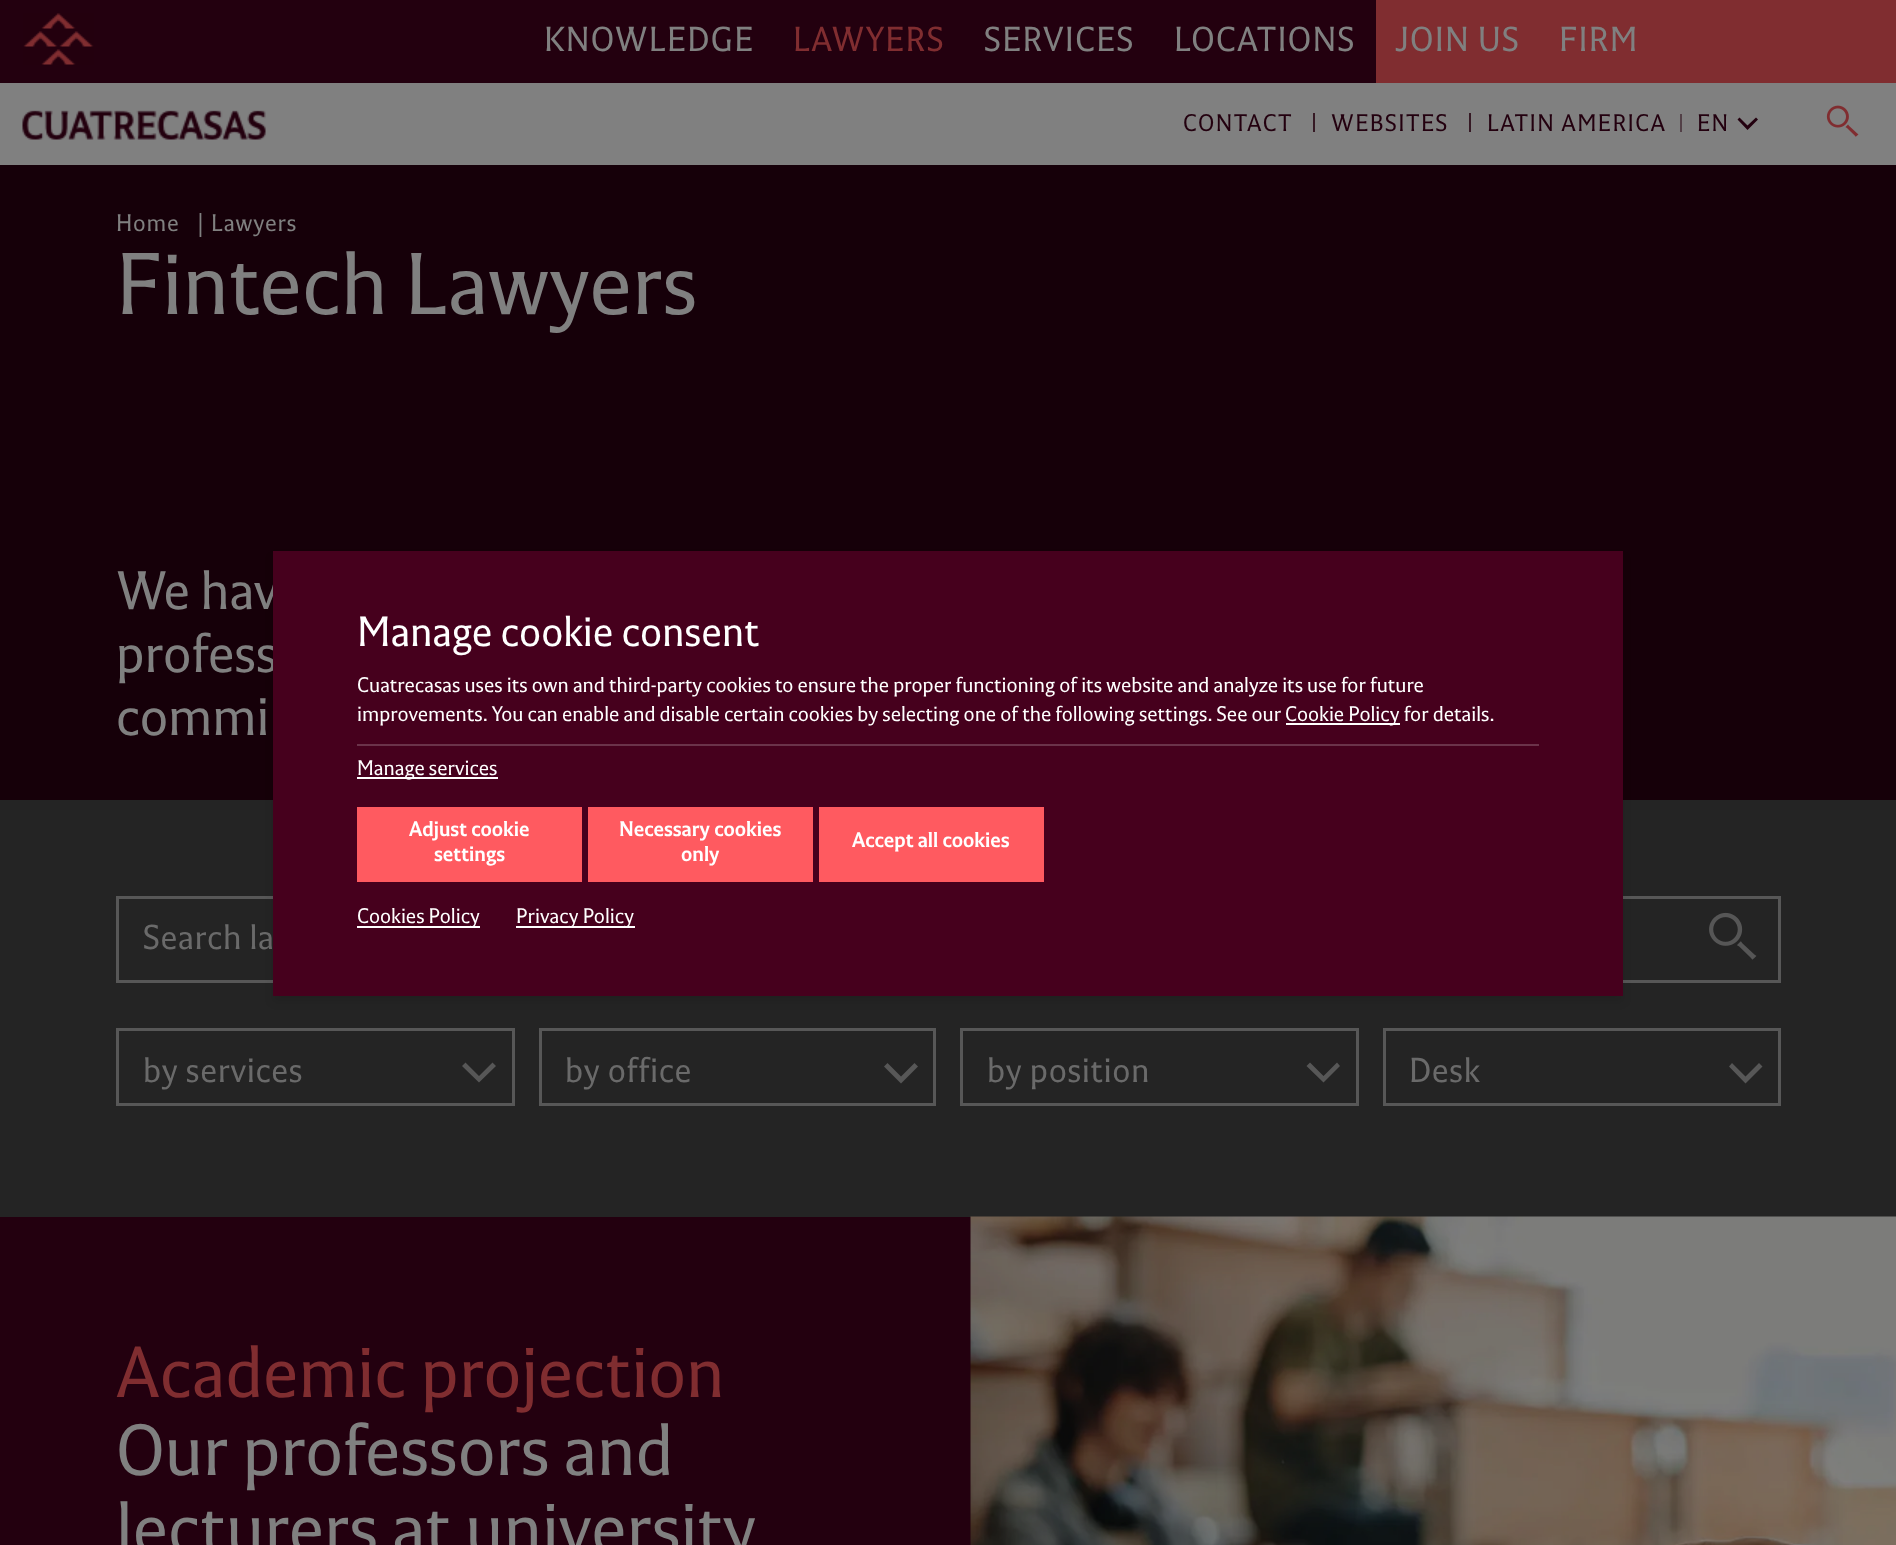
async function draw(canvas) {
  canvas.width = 1896;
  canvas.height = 1545;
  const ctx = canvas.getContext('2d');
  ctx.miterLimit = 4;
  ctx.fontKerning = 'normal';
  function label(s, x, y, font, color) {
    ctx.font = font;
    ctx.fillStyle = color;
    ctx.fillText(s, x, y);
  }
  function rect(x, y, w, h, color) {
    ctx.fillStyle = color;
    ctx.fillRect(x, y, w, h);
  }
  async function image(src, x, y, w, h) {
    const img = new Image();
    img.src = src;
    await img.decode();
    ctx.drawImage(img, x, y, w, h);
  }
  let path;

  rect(0, 0, 1896, 1545, '#23000f');
  await image('assets/img1.png', 23, 13, 71, 52);
  ctx.letterSpacing = '1.25px';
  label('KNOWLEDGE', 544, 51, '34.5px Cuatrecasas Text', '#808080');
  label('LAWYERS', 793, 51, '34.5px Cuatrecasas Text', '#802d30');
  label('SERVICES', 984, 51, '34.5px Cuatrecasas Text', '#808080');
  label('LOCATIONS', 1174, 51, '34.5px Cuatrecasas Text', '#808080');
  rect(1376, 0, 520, 83, '#802d30');
  label('JOIN US', 1395, 51, '34.5px Cuatrecasas Text', '#808080');
  label('FIRM', 1559, 51, '34.5px Cuatrecasas Text', '#808080');
  rect(0, 83, 1896, 82, '#808080');
  await image('assets/img2.png', 22, 110, 244, 30);
  ctx.letterSpacing = '1.4px';
  label('CONTACT', 1183, 131, '24px Cuatrecasas Text', '#23000f');
  rect(1313, 113, 2, 19, '#361a25');
  label('WEBSITES', 1331, 131, '24px Cuatrecasas Text', '#23000f');
  rect(1469, 113, 2, 19, '#361a25');
  label('LATIN AMERICA', 1487, 131, '24px Cuatrecasas Text', '#23000f');
  rect(1680, 114, 2, 18, '#524047');
  label('EN', 1697, 131, '24px Cuatrecasas Text', '#23000f');
  path = new Path2D('M1756 117.5L1758 119.5L1747.5 130L1737.5 119.5L1739.5 117.5L1747.5 125.5Z');
  ctx.fill(path);
  await image('assets/img3.png', 1826, 105, 33, 32);
  rect(0, 165, 1896, 635, '#160009');
  ctx.letterSpacing = '0.75px';
  label('Home', 116, 231, '24px Cuatrecasas Text', '#808080');
  label('|', 198, 231, '24px Cuatrecasas Text', '#808080');
  label('Lawyers', 211, 231, '24px Cuatrecasas Text', '#808080');
  ctx.letterSpacing = '0px';
  label('Fintech Lawyers', 116, 314, '87px Cuatrecasas Text', '#808080');
  label('We hav', 116, 609, '54px Cuatrecasas Text', '#808080');
  label('profess', 116, 672, '54px Cuatrecasas Text', '#808080');
  label('commi', 116, 735, '54px Cuatrecasas Text', '#808080');
  rect(0, 800, 1896, 417, '#242424');
  ctx.strokeStyle = '#575757';
  ctx.lineWidth = 3;
  ctx.strokeRect(117.5, 897.5, 1662, 84);
  ctx.letterSpacing = '0.6px';
  label('Search la', 143, 949, '34.5px Cuatrecasas Text', '#6a6a6a');
  await image('assets/img4.png', 1709, 912, 48, 48);
  ctx.strokeRect(117.5, 1029.5, 396, 75);
  label('by services', 143, 1082, '34.5px Cuatrecasas Text', '#6a6a6a');
  ctx.fillStyle = '#575757';
  path = new Path2D('M492.5 1062.5L496 1066L479 1082.5L462 1066L465.5 1062.5L479 1076Z');
  ctx.fill(path);
  ctx.strokeRect(540.5, 1029.5, 394, 75);
  label('by office', 565, 1082, '34.5px Cuatrecasas Text', '#6a6a6a');
  ctx.fillStyle = '#575757';
  path = new Path2D('M914.5 1063L918 1066.5L901 1083.5L884 1066.5L887.5 1063L901 1076.5Z');
  ctx.fill(path);
  ctx.strokeRect(961.5, 1029.5, 396, 75);
  label('by position', 987, 1082, '34.5px Cuatrecasas Text', '#6a6a6a');
  ctx.fillStyle = '#575757';
  path = new Path2D('M1337 1062.5L1340 1066L1323.5 1082.5L1306.5 1066L1310 1062.5L1323.5 1076Z');
  ctx.fill(path);
  ctx.strokeRect(1384.5, 1029.5, 395, 75);
  label('Desk', 1409, 1082, '34.5px Cuatrecasas Text', '#6a6a6a');
  ctx.fillStyle = '#575757';
  path = new Path2D('M1759 1063L1762.5 1066.5L1745.5 1083.5L1729 1066.5L1732 1063L1745.5 1076.5Z');
  ctx.fill(path);
  ctx.letterSpacing = '0px';
  label('Academic projection', 116, 1397, '72px Cuatrecasas Text', '#802d30');
  label('Our professors and', 116, 1475, '72px Cuatrecasas Text', '#808080');
  label('lecturers at university', 116, 1553, '72px Cuatrecasas Text', '#808080');
  await image('assets/img5.png', 970, 1216, 926, 329);
  ctx.fillStyle = '#0000001a';
  ctx.filter = 'blur(4.5px)';
  ctx.beginPath();
  ctx.rect(273, 557, 1350, 445);
  ctx.fill();
  ctx.filter = 'none';
  rect(273, 551, 1350, 445, '#46001d');
  rect(357, 744, 1182, 2, '#6b334a');
  label('Manage cookie consent', 357, 646, '42px Cuatrecasas Text', '#fff');
  label('Cuatrecasas uses its own and third-party cookies to ensure the proper functioning of its website and analyze its use for future', 357, 692, '21px Cuatrecasas Text', '#fff');
  label('improvements. You can enable and disable certain cookies by selecting one of the following settings. See our', 357, 721, '21px Cuatrecasas Text', '#fff');
  rect(1286, 723, 114, 2, '#fff');
  label('Cookie Policy for details.', 1285, 721, '21px Cuatrecasas Text', '#fff');
  rect(357, 777, 141, 2, '#fff');
  label('Manage services', 357, 775, '21px Cuatrecasas Text', '#fff');
  rect(357, 807, 225, 75, '#ff5a60');
  label('Adjust cookie', 409, 836, 'bold 21px Cuatrecasas Text', '#fff');
  label('settings', 434, 861, 'bold 21px Cuatrecasas Text', '#fff');
  rect(588, 807, 225, 75, '#ff5a60');
  label('Necessary cookies', 619, 836, 'bold 21px Cuatrecasas Text', '#fff');
  label('only', 681, 861, 'bold 21px Cuatrecasas Text', '#fff');
  rect(819, 807, 225, 75, '#ff5a60');
  label('Accept all cookies', 852, 847, 'bold 21px Cuatrecasas Text', '#fff');
  rect(357, 926, 123, 2, '#fff');
  label('Cookies Policy', 357, 923, '21px Cuatrecasas Text', '#fff');
  rect(516, 926, 119, 2, '#fff');
  label('Privacy Policy', 516, 923, '21px Cuatrecasas Text', '#fff');
}

draw(document.querySelector('canvas'));
